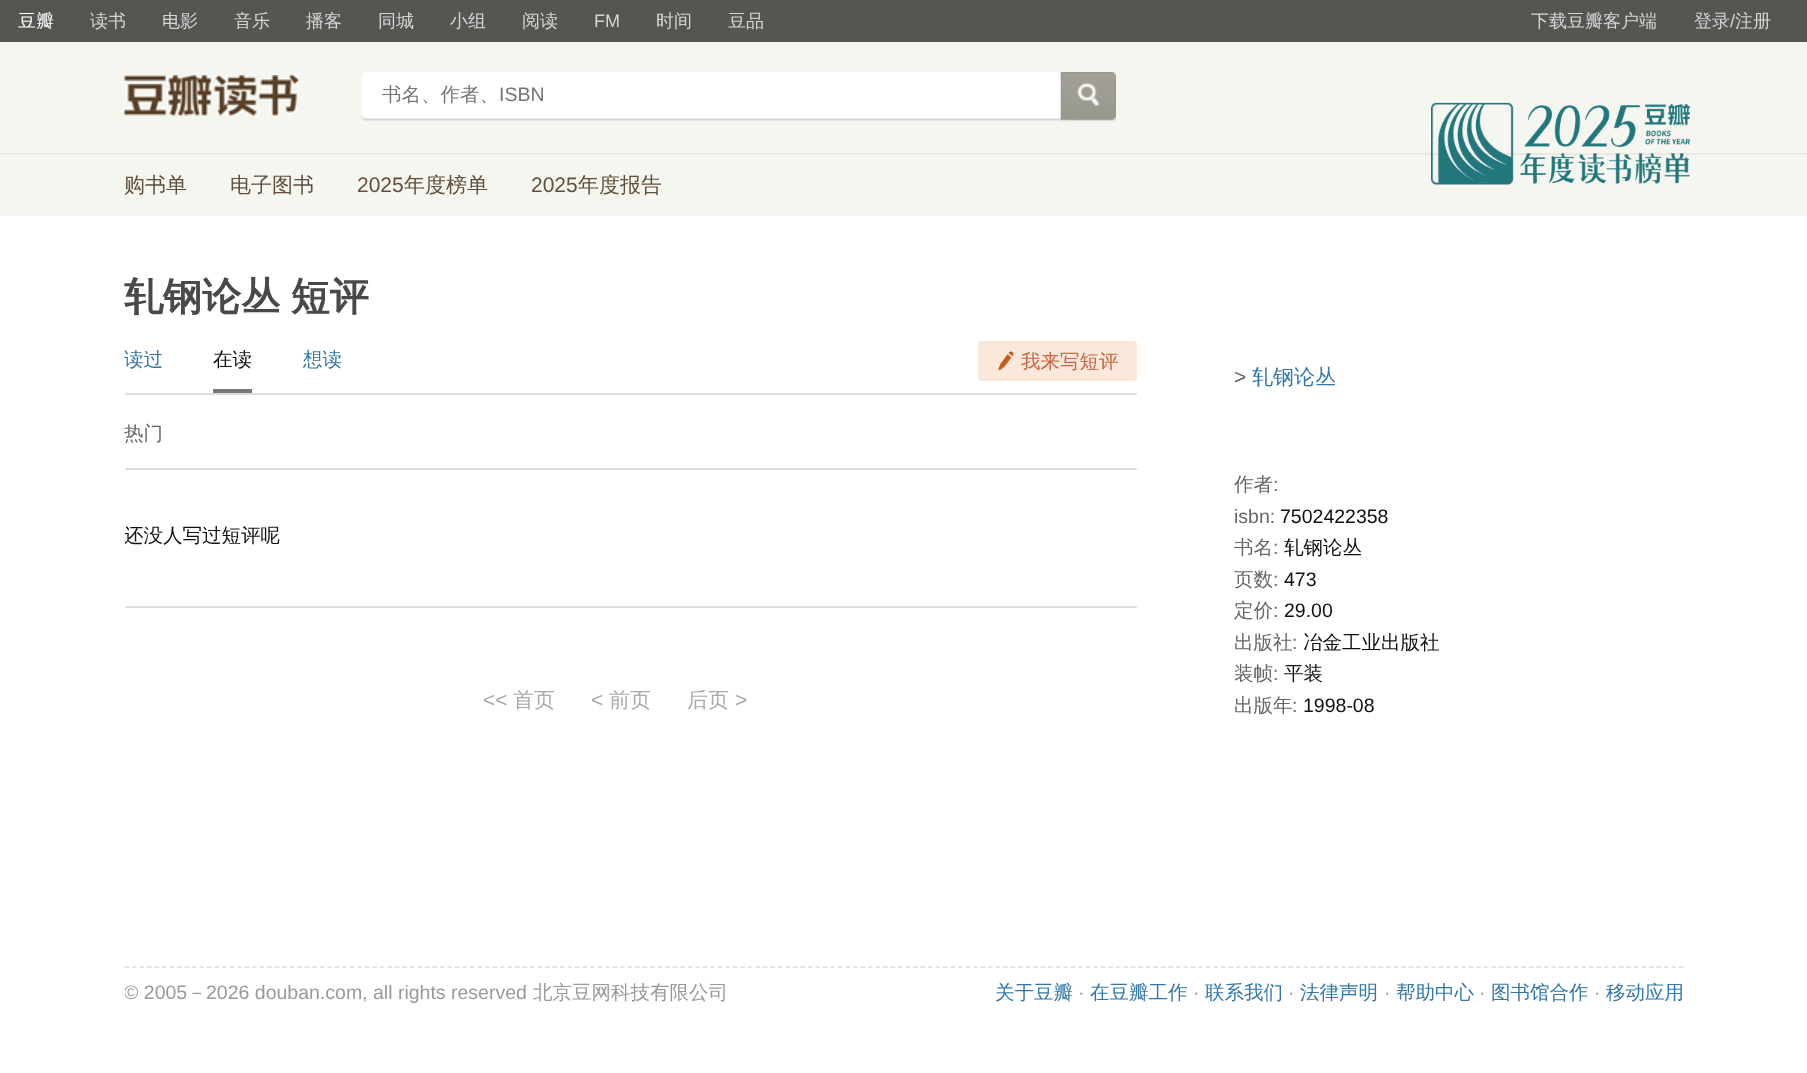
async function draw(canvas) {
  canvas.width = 1807;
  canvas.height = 1073;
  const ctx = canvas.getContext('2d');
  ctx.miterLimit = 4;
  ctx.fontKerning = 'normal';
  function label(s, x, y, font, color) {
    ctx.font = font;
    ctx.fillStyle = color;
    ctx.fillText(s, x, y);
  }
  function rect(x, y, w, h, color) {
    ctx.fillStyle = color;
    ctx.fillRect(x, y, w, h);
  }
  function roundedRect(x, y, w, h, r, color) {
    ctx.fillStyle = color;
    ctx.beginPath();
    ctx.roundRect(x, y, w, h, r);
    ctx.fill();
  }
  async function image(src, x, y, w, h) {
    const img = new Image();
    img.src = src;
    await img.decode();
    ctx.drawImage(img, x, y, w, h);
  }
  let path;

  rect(0, 0, 1807, 1073, '#fff');
  rect(0, 0, 1807, 42, '#545652');
  label('豆瓣', 18, 27, '500 18px WenQuanYi Zen Hei', '#fff');
  label('读书', 90, 27, '500 18px WenQuanYi Zen Hei', '#d5d5d5');
  label('电影', 162, 27, '500 18px WenQuanYi Zen Hei', '#d5d5d5');
  label('音乐', 234, 27, '500 18px WenQuanYi Zen Hei', '#d5d5d5');
  label('播客', 306, 27, '500 18px WenQuanYi Zen Hei', '#d5d5d5');
  label('同城', 378, 27, '500 18px WenQuanYi Zen Hei', '#d5d5d5');
  label('小组', 450, 27, '500 18px WenQuanYi Zen Hei', '#d5d5d5');
  label('阅读', 522, 27, '500 18px WenQuanYi Zen Hei', '#d5d5d5');
  label('FM', 594, 27, '18px Liberation Sans', '#d5d5d5');
  label('时间', 656, 27, '500 18px WenQuanYi Zen Hei', '#d5d5d5');
  label('豆品', 728, 27, '500 18px WenQuanYi Zen Hei', '#d5d5d5');
  label('下载豆瓣客户端', 1531, 27, '500 18px WenQuanYi Zen Hei', '#d5d5d5');
  label('登录', 1694, 27, '500 18px WenQuanYi Zen Hei', '#d5d5d5');
  label('/', 1730, 27, '18px Liberation Sans', '#d5d5d5');
  label('注册', 1735, 27, '500 18px WenQuanYi Zen Hei', '#d5d5d5');
  rect(0, 42, 1807, 174, '#f6f6f1');
  rect(0, 153, 1807, 2, '#e9e9e2');
  await image('assets/img1.png', 124, 75, 175, 41);
  await image('assets/img2.png', 361, 72, 706, 50);
  label('书名、作者、', 382, 101, '500 19.5px WenQuanYi Zen Hei', '#757575');
  label('ISBN', 499, 101, '19.5px Liberation Sans', '#757575');
  await image('assets/img3.png', 1060, 72, 56, 50);
  label('购书单', 124, 192, '500 21px WenQuanYi Zen Hei', '#614e3c');
  label('电子图书', 230, 192, '500 21px WenQuanYi Zen Hei', '#614e3c');
  label('2025', 357, 192, '21px Liberation Sans', '#614e3c');
  label('年度榜单', 404, 192, '500 21px WenQuanYi Zen Hei', '#614e3c');
  label('2025', 531, 192, '21px Liberation Sans', '#614e3c');
  label('年度报告', 578, 192, '500 21px WenQuanYi Zen Hei', '#614e3c');
  await image('assets/img4.png', 1431, 102, 259, 83);
  ctx.wordSpacing = '-1px';
  label('轧钢论丛 短评', 124, 310, 'bold 39px WenQuanYi Zen Hei', '#494949');
  ctx.wordSpacing = '0px';
  label('读过', 124, 366, '500 19.5px WenQuanYi Zen Hei', '#37a');
  rect(213, 389, 39, 4, '#777');
  label('在读', 213, 366, '500 19.5px WenQuanYi Zen Hei', '#111');
  label('想读', 303, 366, '500 19.5px WenQuanYi Zen Hei', '#37a');
  roundedRect(978, 341, 159, 40, 3, '#fae9da');
  await image('assets/img5.png', 998, 351, 16, 20);
  label('我来写短评', 1021, 368, '500 19.5px WenQuanYi Zen Hei', '#ca6445');
  roundedRect(125, 393, 1012, 2, 1, '#ddd');
  label('热门', 124, 440, '500 19.5px WenQuanYi Zen Hei', '#666');
  roundedRect(125, 468, 1012, 2, 1, '#ddd');
  ctx.save();
  ctx.beginPath();
  ctx.rect(125, 470, 1012, 322);
  ctx.clip();
  label('还没人写过短评呢', 124, 542, '500 19.5px WenQuanYi Zen Hei', '#111');
  ctx.restore();
  roundedRect(125, 606, 1012, 2, 1, '#ddd');
  label('<<', 483, 707, '21px Liberation Sans', '#aaa');
  label('首页', 513, 707, '500 21px WenQuanYi Zen Hei', '#aaa');
  label('<', 591, 707, '21px Liberation Sans', '#aaa');
  label('前页', 609, 707, '500 21px WenQuanYi Zen Hei', '#aaa');
  label('后页', 687, 707, '500 21px WenQuanYi Zen Hei', '#aaa');
  label('>', 735, 707, '21px Liberation Sans', '#aaa');
  label('>', 1234, 384, '21px Liberation Sans', '#666');
  label('轧钢论丛', 1252, 384, '500 21px WenQuanYi Zen Hei', '#37a');
  label('作者', 1234, 491, '500 19.5px WenQuanYi Zen Hei', '#666');
  label(':', 1273, 491, '19.5px Liberation Sans', '#666');
  label('isbn:', 1234, 523, '19.5px Liberation Sans', '#666');
  label('7502422358', 1280, 523, '19.5px Liberation Sans', '#111');
  label('书名', 1234, 554, '500 19.5px WenQuanYi Zen Hei', '#666');
  label(':', 1273, 554, '19.5px Liberation Sans', '#666');
  label('轧钢论丛', 1284, 554, '500 19.5px WenQuanYi Zen Hei', '#111');
  label('页数', 1234, 586, '500 19.5px WenQuanYi Zen Hei', '#666');
  label(':', 1273, 586, '19.5px Liberation Sans', '#666');
  label('473', 1284, 586, '19.5px Liberation Sans', '#111');
  label('定价', 1234, 617, '500 19.5px WenQuanYi Zen Hei', '#666');
  label(':', 1273, 617, '19.5px Liberation Sans', '#666');
  label('29.00', 1284, 617, '19.5px Liberation Sans', '#111');
  label('出版社', 1234, 649, '500 19.5px WenQuanYi Zen Hei', '#666');
  label(':', 1292, 649, '19.5px Liberation Sans', '#666');
  label('冶金工业出版社', 1303, 649, '500 19.5px WenQuanYi Zen Hei', '#111');
  label('装帧', 1234, 680, '500 19.5px WenQuanYi Zen Hei', '#666');
  label(':', 1273, 680, '19.5px Liberation Sans', '#666');
  label('平装', 1284, 680, '500 19.5px WenQuanYi Zen Hei', '#111');
  label('出版年', 1234, 712, '500 19.5px WenQuanYi Zen Hei', '#666');
  label(':', 1292, 712, '19.5px Liberation Sans', '#666');
  label('1998-08', 1303, 712, '19.5px Liberation Sans', '#111');
  path = new Path2D('M124.5 967H1684.5');
  ctx.strokeStyle = '#ddd';
  ctx.lineWidth = 1.5;
  ctx.setLineDash([4.5, 3.01]);
  ctx.stroke(path);
  ctx.save();
  ctx.beginPath();
  ctx.rect(125, 968, 1560, 49);
  ctx.clip();
  label('© 2005', 124, 999, '19.5px Liberation Sans', '#999');
  ctx.restore();
  label('－', 187, 999, '500 19.5px WenQuanYi Zen Hei', '#999');
  label('2026 douban.com, all rights reserved', 206, 999, '19.5px Liberation Sans', '#999');
  label('北京豆网科技有限公司', 533, 999, '500 19.5px WenQuanYi Zen Hei', '#999');
  label('关于豆瓣', 995, 999, '500 19.5px WenQuanYi Zen Hei', '#37a');
  label('·', 1078, 999, '19.5px Liberation Sans', '#999');
  label('在豆瓣工作', 1090, 999, '500 19.5px WenQuanYi Zen Hei', '#37a');
  label('·', 1193, 999, '19.5px Liberation Sans', '#999');
  label('联系我们', 1205, 999, '500 19.5px WenQuanYi Zen Hei', '#37a');
  label('·', 1288, 999, '19.5px Liberation Sans', '#999');
  label('法律声明', 1300, 999, '500 19.5px WenQuanYi Zen Hei', '#37a');
  label('·', 1384, 999, '19.5px Liberation Sans', '#999');
  label('帮助中心', 1396, 999, '500 19.5px WenQuanYi Zen Hei', '#37a');
  label('·', 1479, 999, '19.5px Liberation Sans', '#999');
  label('图书馆合作', 1491, 999, '500 19.5px WenQuanYi Zen Hei', '#37a');
  label('·', 1594, 999, '19.5px Liberation Sans', '#999');
  label('移动应用', 1606, 999, '500 19.5px WenQuanYi Zen Hei', '#37a');
}

draw(document.querySelector('canvas'));
